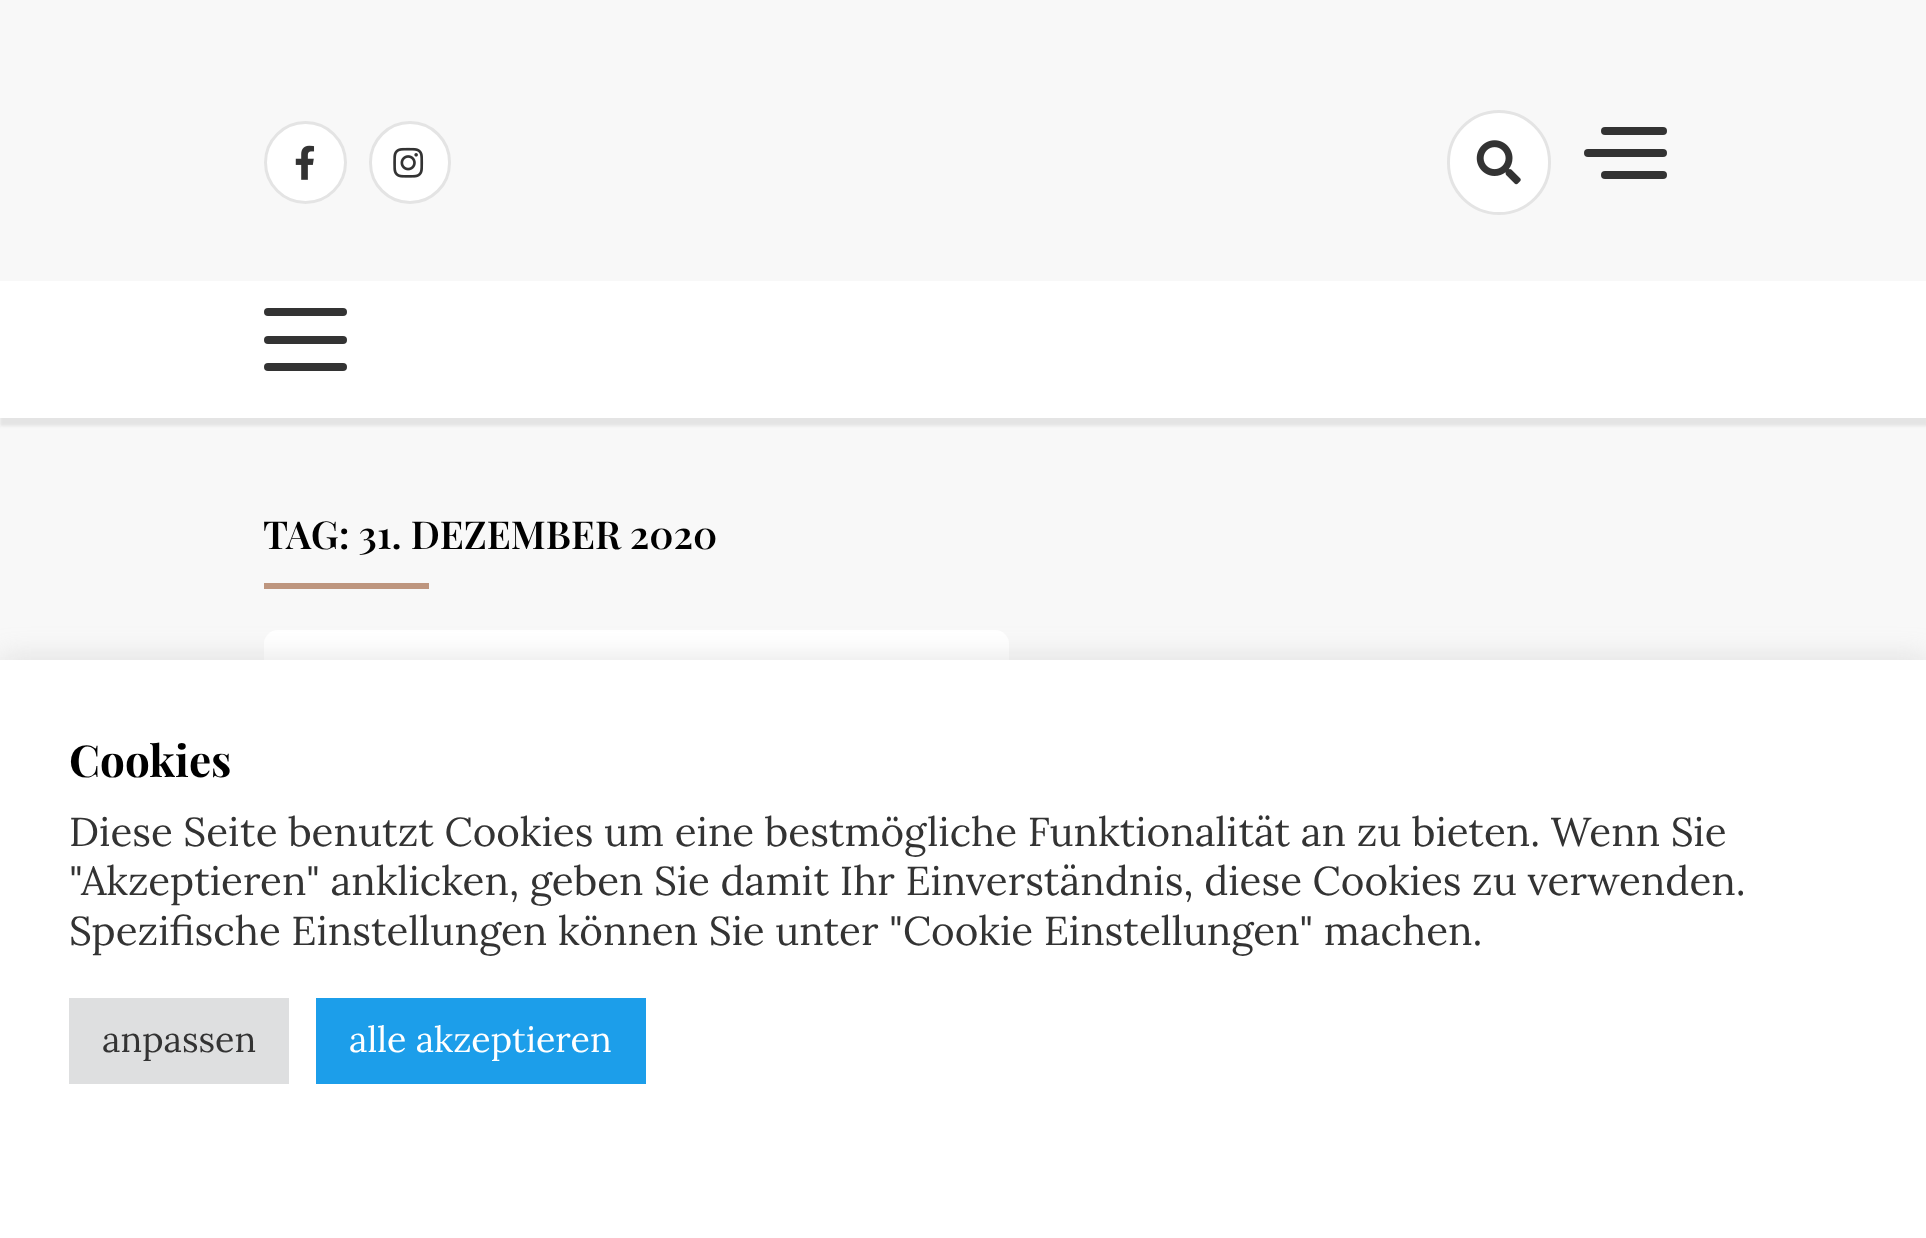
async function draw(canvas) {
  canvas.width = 1926;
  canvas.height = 1238;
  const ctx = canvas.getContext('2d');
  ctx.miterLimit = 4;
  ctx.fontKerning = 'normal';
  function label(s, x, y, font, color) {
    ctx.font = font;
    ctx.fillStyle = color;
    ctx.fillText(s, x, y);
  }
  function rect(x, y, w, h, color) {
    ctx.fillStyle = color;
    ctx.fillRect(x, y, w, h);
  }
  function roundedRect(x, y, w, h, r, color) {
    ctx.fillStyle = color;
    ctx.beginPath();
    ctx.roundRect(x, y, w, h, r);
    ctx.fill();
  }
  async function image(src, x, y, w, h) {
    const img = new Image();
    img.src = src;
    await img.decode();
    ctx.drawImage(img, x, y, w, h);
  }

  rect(0, 0, 1926, 1238, '#f8f8f8');
  ctx.fillStyle = '#fff';
  ctx.beginPath();
  ctx.arc(305.5, 162.5, 40, 0, 2 * Math.PI);
  ctx.fill();
  ctx.strokeStyle = '#e4e4e4';
  ctx.lineWidth = 3;
  ctx.stroke();
  await image('assets/img1.png', 295, 145, 20, 35);
  ctx.beginPath();
  ctx.roundRect(370.5, 122.5, 79, 80, 39.5);
  ctx.fill();
  ctx.stroke();
  await image('assets/img2.png', 393, 147, 31, 31);
  ctx.beginPath();
  ctx.roundRect(1448.5, 111.5, 101, 102, 50.5);
  ctx.fill();
  ctx.stroke();
  await image('assets/img3.png', 1476, 140, 45, 45);
  roundedRect(1584, 149, 83, 8, 4, '#333');
  roundedRect(1601, 127, 66, 8, 4, '#333');
  roundedRect(1601, 171, 66, 8, 4, '#333');
  ctx.fillStyle = '#e4e4e4';
  ctx.filter = 'blur(1.5px)';
  ctx.beginPath();
  ctx.rect(0, 289, 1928, 137);
  ctx.fill();
  ctx.filter = 'none';
  rect(0, 281, 1926, 137, '#fff');
  roundedRect(264, 308, 83, 8, 4, '#333');
  roundedRect(264, 336, 83, 8, 4, '#333');
  roundedRect(264, 363, 83, 8, 4, '#333');
  label('TAG: 31. DEZEMBER 2020', 263, 549, '600 38.5px Playfair Display', '#000');
  rect(264, 583, 165, 6, '#be967f');
  roundedRect(264, 630, 745, 115, 14, '#fff');
  ctx.fillStyle = '#acabab4d';
  ctx.filter = 'blur(14px)';
  ctx.beginPath();
  ctx.rect(0, 657, 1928, 581);
  ctx.fill();
  ctx.filter = 'none';
  rect(0, 660, 1926, 578, '#fff');
  label('Cookies', 69, 777, 'bold 44px Playfair Display', '#000');
  label('Diese Seite benutzt Cookies um eine bestmögliche Funktionalität an zu bieten. Wenn Sie', 69, 846, '40.35px Lora', '#333');
  label('"Akzeptieren" anklicken, geben Sie damit Ihr Einverständnis, diese Cookies zu verwenden.', 69, 895, '40.35px Lora', '#333');
  label('Spezifische Einstellungen können Sie unter "Cookie Einstellungen" machen.', 69, 945, '40.35px Lora', '#333');
  rect(69, 998, 220, 86, '#dedfe0');
  label('anpassen', 102, 1052, '35.75px Lora', '#333');
  rect(316, 998, 330, 86, '#1c9eea');
  label('alle akzeptieren', 349, 1052, '35.75px Lora', '#fff');
}

draw(document.querySelector('canvas'));
